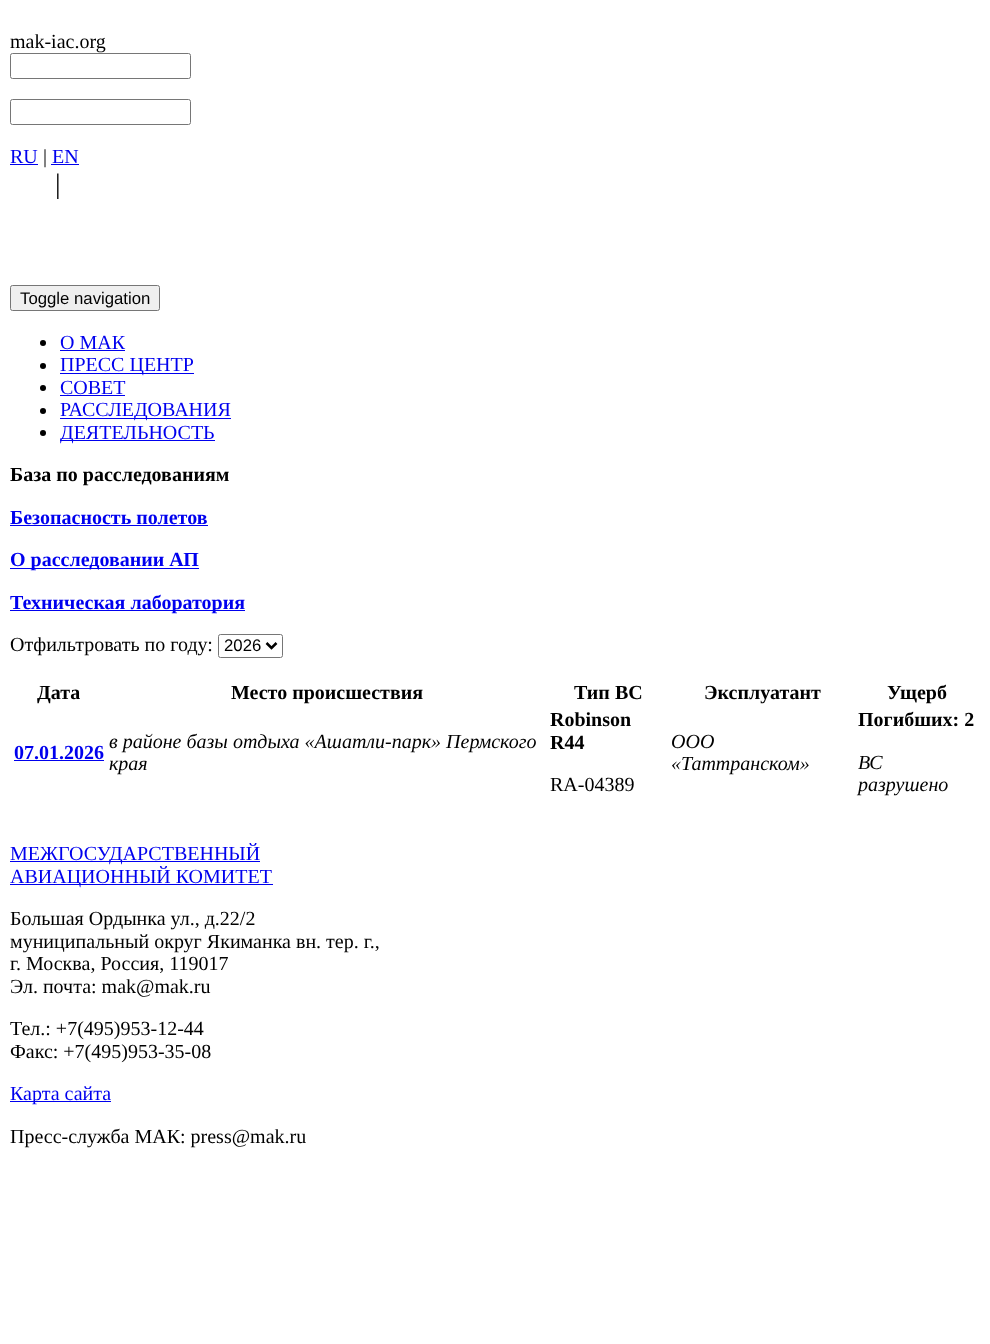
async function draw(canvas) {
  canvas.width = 990;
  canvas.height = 1344;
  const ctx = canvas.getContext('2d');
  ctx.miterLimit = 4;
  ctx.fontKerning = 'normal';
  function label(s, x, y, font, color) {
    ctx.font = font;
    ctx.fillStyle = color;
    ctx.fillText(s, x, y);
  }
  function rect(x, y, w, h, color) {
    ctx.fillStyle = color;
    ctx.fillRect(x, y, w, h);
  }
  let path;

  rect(0, 0, 990, 1344, '#fff');
  label('mak-iac.org', 10, 48, '20px Liberation Serif', '#000');
  ctx.beginPath();
  ctx.roundRect(10.5, 53.5, 180, 25, 2);
  ctx.strokeStyle = '#767676';
  ctx.stroke();
  ctx.beginPath();
  ctx.roundRect(10.5, 99.5, 180, 25, 2);
  ctx.stroke();
  label('RU', 10, 163, '20px Liberation Serif', '#00e');
  rect(10, 164, 28, 1, '#00e');
  label('|', 43, 163, '20px Liberation Serif', '#000');
  label('EN', 52, 163, '20px Liberation Serif', '#00e');
  rect(51, 164, 28, 1, '#00e');
  label('|', 55, 193, '28px Liberation Serif', '#000');
  ctx.fillStyle = '#efefef';
  ctx.beginPath();
  ctx.roundRect(10.5, 285.5, 149, 25, 2);
  ctx.fill();
  ctx.stroke();
  label('Toggle navigation', 20, 304, '16.75px Liberation Sans', '#000');
  ctx.beginPath();
  ctx.arc(43, 343, 3, 0, 2 * Math.PI);
  ctx.fill();
  label('О МАК', 60, 349, '20px Liberation Serif', '#00e');
  rect(60, 350, 65, 1, '#00e');
  ctx.fillStyle = '#000';
  ctx.beginPath();
  ctx.arc(43, 366, 3, 0, 2 * Math.PI);
  ctx.fill();
  rect(60, 373, 134, 1, '#00e');
  label('ПРЕСС ЦЕНТР', 60, 371, '20px Liberation Serif', '#00e');
  ctx.fillStyle = '#000';
  ctx.beginPath();
  ctx.arc(43, 388, 3, 0, 2 * Math.PI);
  ctx.fill();
  label('СОВЕТ', 60, 394, '20px Liberation Serif', '#00e');
  rect(60, 395, 65, 1, '#00e');
  ctx.fillStyle = '#000';
  ctx.beginPath();
  ctx.arc(43, 411, 3, 0, 2 * Math.PI);
  ctx.fill();
  rect(60, 418, 171, 1, '#00e');
  label('РАССЛЕДОВАНИЯ', 60, 416, '20px Liberation Serif', '#00e');
  ctx.fillStyle = '#000';
  ctx.beginPath();
  ctx.arc(43, 433, 3, 0, 2 * Math.PI);
  ctx.fill();
  rect(60, 440, 155, 1, '#00e');
  label('ДЕЯТЕЛЬНОСТЬ', 60, 439, '20px Liberation Serif', '#00e');
  label('База по расследованиям', 10, 481, 'bold 20px Liberation Serif', '#000');
  label('Безопасность полетов', 10, 524, 'bold 20px Liberation Serif', '#00e');
  rect(10, 525, 198, 1, '#00e');
  rect(10, 568, 189, 1, '#00e');
  label('О расследовании АП', 10, 566, 'bold 20px Liberation Serif', '#00e');
  rect(10, 610, 235, 1, '#00e');
  label('Техническая лаборатория', 10, 609, 'bold 20px Liberation Serif', '#00e');
  label('Отфильтровать по году:', 10, 651, '20px Liberation Serif', '#000');
  ctx.beginPath();
  ctx.roundRect(218.5, 634.5, 64, 23, 2);
  ctx.stroke();
  path = new Path2D('M266.5 643L271.5 648L276.5 643');
  ctx.strokeStyle = '#000';
  ctx.lineWidth = 2.5;
  ctx.stroke(path);
  label('2026', 224, 651, '16.75px Liberation Sans', '#000');
  label('Дата', 37, 699, 'bold 20px Liberation Serif', '#000');
  label('Место происшествия', 231, 699, 'bold 20px Liberation Serif', '#000');
  label('Тип ВС', 574, 699, 'bold 20px Liberation Serif', '#000');
  label('Эксплуатант', 704, 699, 'bold 20px Liberation Serif', '#000');
  label('Ущерб', 887, 699, 'bold 20px Liberation Serif', '#000');
  label('07.01.2026', 14, 759, 'bold 20px Liberation Serif', '#00e');
  rect(14, 760, 90, 1, '#00e');
  label('в районе базы отдыха «Ашатли-парк» Пермского', 109, 748, 'italic 20px Liberation Serif', '#000');
  label('края', 109, 770, 'italic 20px Liberation Serif', '#000');
  label('Robinson', 550, 726, 'bold 20px Liberation Serif', '#000');
  label('R44', 550, 749, 'bold 20px Liberation Serif', '#000');
  label('RA-04389', 550, 791, '20px Liberation Serif', '#000');
  label('ООО', 671, 748, 'italic 20px Liberation Serif', '#000');
  label('«Таттранском»', 671, 770, 'italic 20px Liberation Serif', '#000');
  label('Погибших: 2', 858, 726, 'bold 20px Liberation Serif', '#000');
  label('ВС', 858, 769, 'italic 20px Liberation Serif', '#000');
  label('разрушено', 858, 791, 'italic 20px Liberation Serif', '#000');
  rect(10, 861, 250, 1, '#00e');
  label('МЕЖГОСУДАРСТВЕННЫЙ', 10, 860, '20px Liberation Serif', '#00e');
  rect(10, 884, 263, 1, '#00e');
  label('АВИАЦИОННЫЙ КОМИТЕТ', 10, 883, '20px Liberation Serif', '#00e');
  label('Большая Ордынка ул., д.22/2', 10, 925, '20px Liberation Serif', '#000');
  label('муниципальный округ Якиманка вн. тер. г.,', 10, 948, '20px Liberation Serif', '#000');
  label('г. Москва, Россия, 119017', 10, 970, '20px Liberation Serif', '#000');
  label('Эл. почта: mak@mak.ru', 10, 993, '20px Liberation Serif', '#000');
  label('Тел.: +7(495)953-12-44', 10, 1035, '20px Liberation Serif', '#000');
  label('Факс: +7(495)953-35-08', 10, 1058, '20px Liberation Serif', '#000');
  rect(10, 1101, 101, 1, '#00e');
  label('Карта сайта', 10, 1100, '20px Liberation Serif', '#00e');
  label('Пресс-служба МАК: press@mak.ru', 10, 1143, '20px Liberation Serif', '#000');
}

draw(document.querySelector('canvas'));
